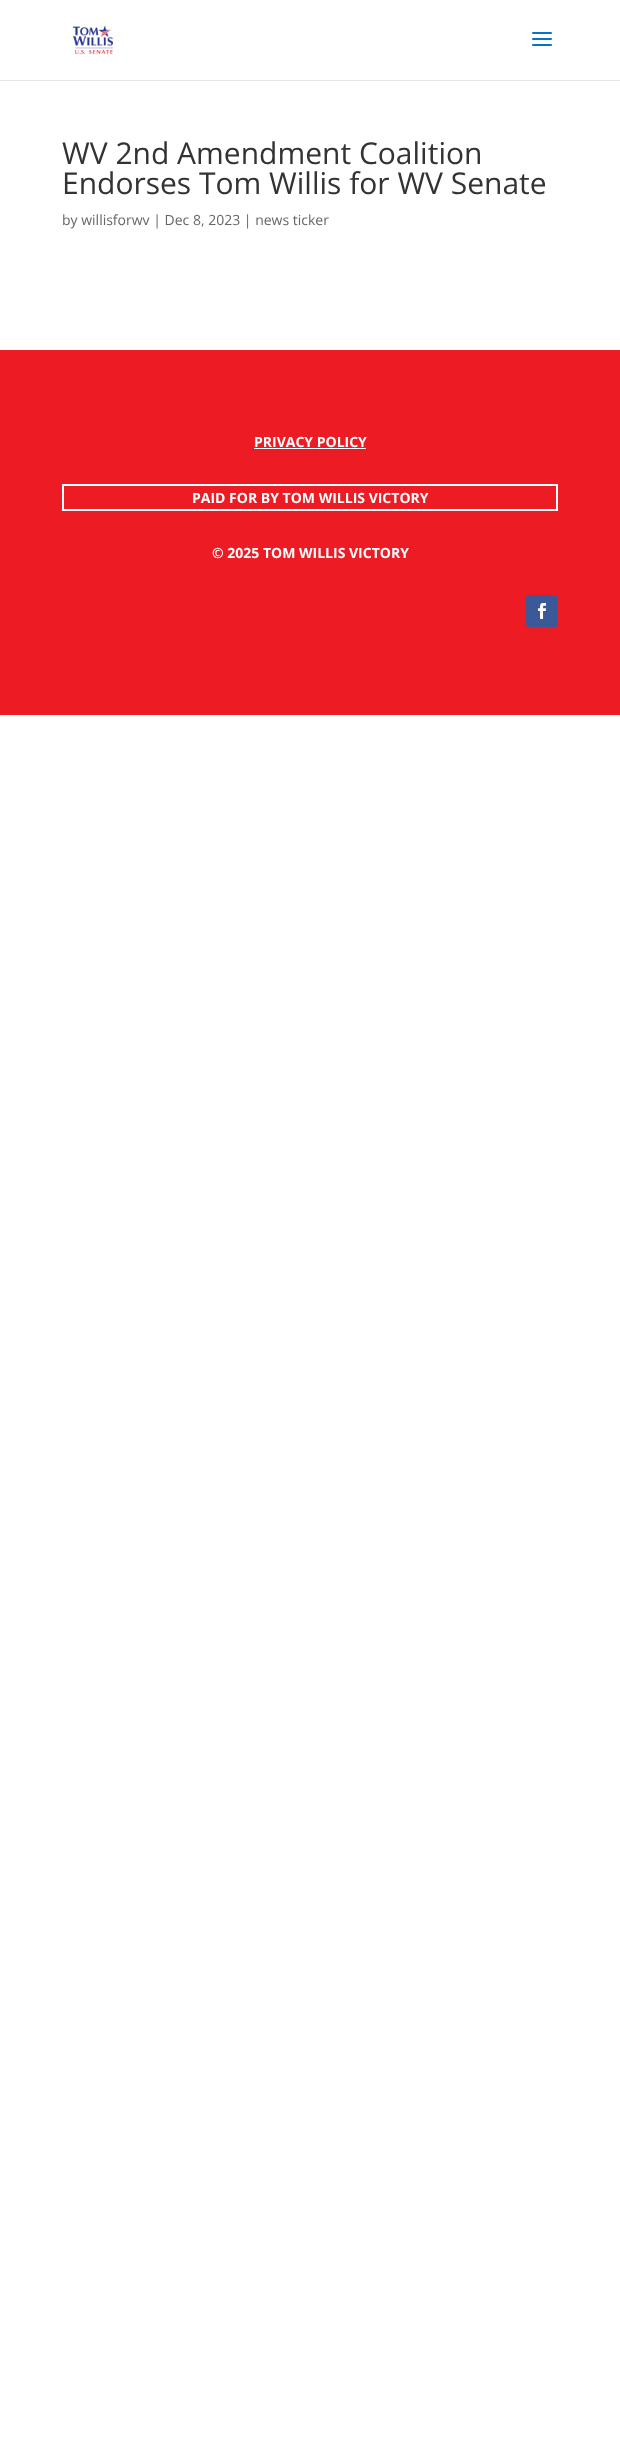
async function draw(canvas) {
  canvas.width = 620;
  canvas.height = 2442;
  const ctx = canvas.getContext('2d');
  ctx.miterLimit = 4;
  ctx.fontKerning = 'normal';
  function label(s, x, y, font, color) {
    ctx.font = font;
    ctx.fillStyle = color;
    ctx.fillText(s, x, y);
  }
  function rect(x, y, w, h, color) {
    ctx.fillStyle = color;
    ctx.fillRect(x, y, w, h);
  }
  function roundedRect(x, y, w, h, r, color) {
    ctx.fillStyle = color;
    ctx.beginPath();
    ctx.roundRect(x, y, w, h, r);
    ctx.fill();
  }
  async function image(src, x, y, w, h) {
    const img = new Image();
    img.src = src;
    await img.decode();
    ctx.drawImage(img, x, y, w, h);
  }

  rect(0, 0, 620, 2442, '#fff');
  rect(0, 80, 620, 1, '#e6e6e6');
  await image('assets/img1.png', 73, 25, 40, 30);
  await image('assets/img2.png', 532, 32, 20, 14);
  label('WV 2nd Amendment Coalition', 62, 164, '30px Open Sans', '#333');
  label('Endorses Tom Willis for WV Senate', 62, 194, '30px Open Sans', '#333');
  label('by willisforwv | Dec 8, 2023 | news ticker', 62, 225, '14px Open Sans', '#666');
  rect(0, 350, 620, 365, '#ed1c24');
  label('PRIVACY POLICY', 254, 447, 'bold 14px Open Sans', '#fff');
  rect(254, 448, 112, 1, '#fff');
  ctx.strokeStyle = '#fff';
  ctx.lineWidth = 2;
  ctx.strokeRect(63, 485, 494, 25);
  label('PAID FOR BY TOM WILLIS VICTORY', 192, 503, 'bold 14px Open Sans', '#fff');
  label('© 2025 TOM WILLIS VICTORY', 212, 558, 'bold 14px Open Sans', '#fff');
  roundedRect(526, 595, 32, 32, 3, '#3b5998');
  await image('assets/img3.png', 538, 603, 8, 16);
}

draw(document.querySelector('canvas'));
